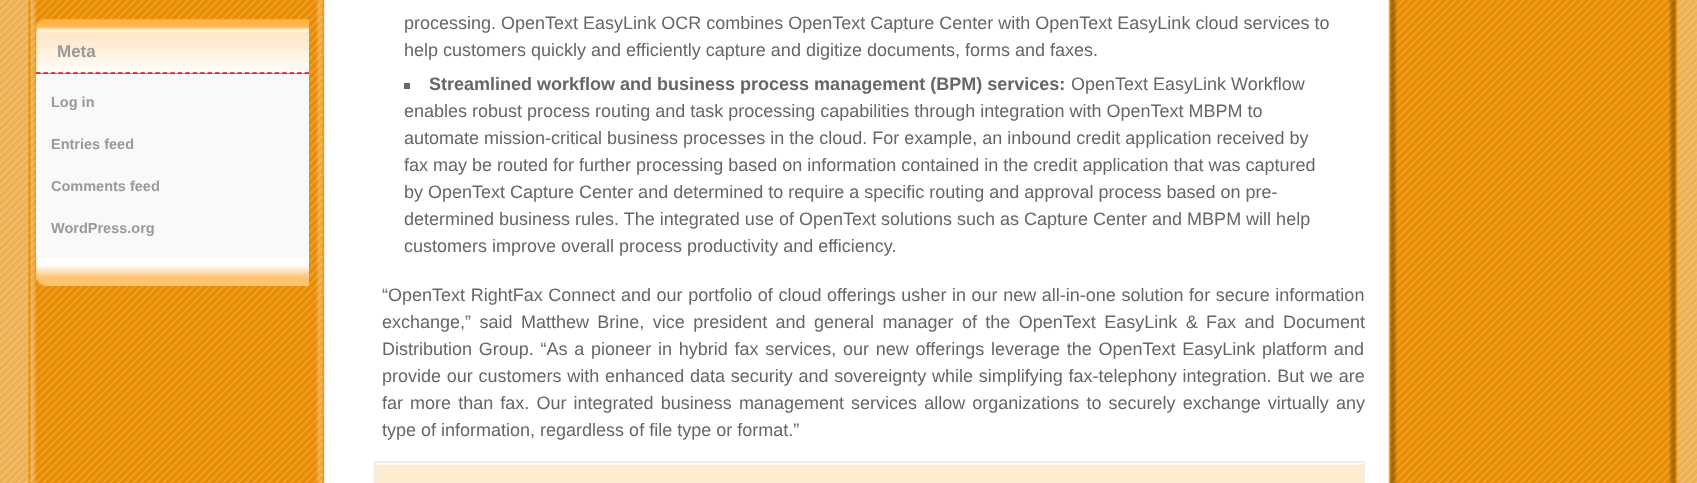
async function draw(canvas) {
  canvas.width = 1697;
  canvas.height = 483;
  const ctx = canvas.getContext('2d');
  ctx.miterLimit = 4;
  ctx.fontKerning = 'normal';
  function label(s, x, y, font, color) {
    ctx.font = font;
    ctx.fillStyle = color;
    ctx.fillText(s, x, y);
  }
  function rect(x, y, w, h, color) {
    ctx.fillStyle = color;
    ctx.fillRect(x, y, w, h);
  }
  async function image(src, x, y, w, h) {
    const img = new Image();
    img.src = src;
    await img.decode();
    ctx.drawImage(img, x, y, w, h);
  }
  let path;

  rect(0, 0, 1697, 483, '#fff');
  await image('assets/img1.png', 0, 0, 325, 483);
  await image('assets/img2.png', 1388, 0, 309, 483);
  await image('assets/img3.png', 36, 257, 273, 29);
  await image('assets/img4.png', 36, 19, 273, 54);
  path = new Path2D('M36 73H309');
  ctx.strokeStyle = '#f00';
  ctx.lineWidth = 1.5;
  ctx.setLineDash([4.5, 2.96]);
  ctx.stroke(path);
  label('Meta', 57, 57, 'bold 17px Liberation Sans', '#999');
  rect(36, 74, 273, 183, '#f9f9f9');
  label('Log in', 51, 107, 'bold 14.5px Liberation Sans', '#999');
  label('Entries feed', 51, 149, 'bold 14.5px Liberation Sans', '#999');
  label('Comments feed', 51, 191, 'bold 14.5px Liberation Sans', '#999');
  label('WordPress.org', 51, 233, 'bold 14.5px Liberation Sans', '#999');
  label('processing. OpenText EasyLink OCR combines OpenText Capture Center with OpenText EasyLink cloud services to', 404, 29, '18px Liberation Sans', '#666');
  label('help customers quickly and efficiently capture and digitize documents, forms and faxes.', 404, 56, '18px Liberation Sans', '#666');
  rect(404, 83, 6, 6, '#666');
  label('Streamlined workflow and business process management (BPM) services:', 429, 90, 'bold 18px Liberation Sans', '#666');
  label('OpenText EasyLink Workflow', 1071, 90, '18px Liberation Sans', '#666');
  label('enables robust process routing and task processing capabilities through integration with OpenText MBPM to', 404, 117, '18px Liberation Sans', '#666');
  label('automate mission-critical business processes in the cloud. For example, an inbound credit application received by', 404, 144, '18px Liberation Sans', '#666');
  label('fax may be routed for further processing based on information contained in the credit application that was captured', 404, 171, '18px Liberation Sans', '#666');
  label('by OpenText Capture Center and determined to require a specific routing and approval process based on pre-', 404, 198, '18px Liberation Sans', '#666');
  label('determined business rules. The integrated use of OpenText solutions such as Capture Center and MBPM will help', 404, 225, '18px Liberation Sans', '#666');
  label('customers improve overall process productivity and efficiency.', 404, 252, '18px Liberation Sans', '#666');
  ctx.wordSpacing = '0.6px';
  label('“OpenText RightFax Connect and our portfolio of cloud offerings usher in our new all-in-one solution for secure information', 382, 301, '18px Liberation Sans', '#666');
  ctx.wordSpacing = '3.4px';
  label('exchange,” said Matthew Brine, vice president and general manager of the OpenText EasyLink & Fax and Document', 382, 328, '18px Liberation Sans', '#666');
  ctx.wordSpacing = '1.75px';
  label('Distribution Group. “As a pioneer in hybrid fax services, our new offerings leverage the OpenText EasyLink platform and', 382, 355, '18px Liberation Sans', '#666');
  ctx.wordSpacing = '0.75px';
  label('provide our customers with enhanced data security and sovereignty while simplifying fax-telephony integration. But we are', 382, 382, '18px Liberation Sans', '#666');
  ctx.wordSpacing = '2.1px';
  label('far more than fax. Our integrated business management services allow organizations to securely exchange virtually any', 382, 409, '18px Liberation Sans', '#666');
  ctx.wordSpacing = '0px';
  label('type of information, regardless of file type or format.”', 382, 436, '18px Liberation Sans', '#666');
  await image('assets/img5.png', 373, 461, 990, 22);
  ctx.strokeStyle = '#eee';
  ctx.lineWidth = 2;
  ctx.setLineDash([]);
  ctx.strokeRect(375, 462, 989, 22);
}

draw(document.querySelector('canvas'));
